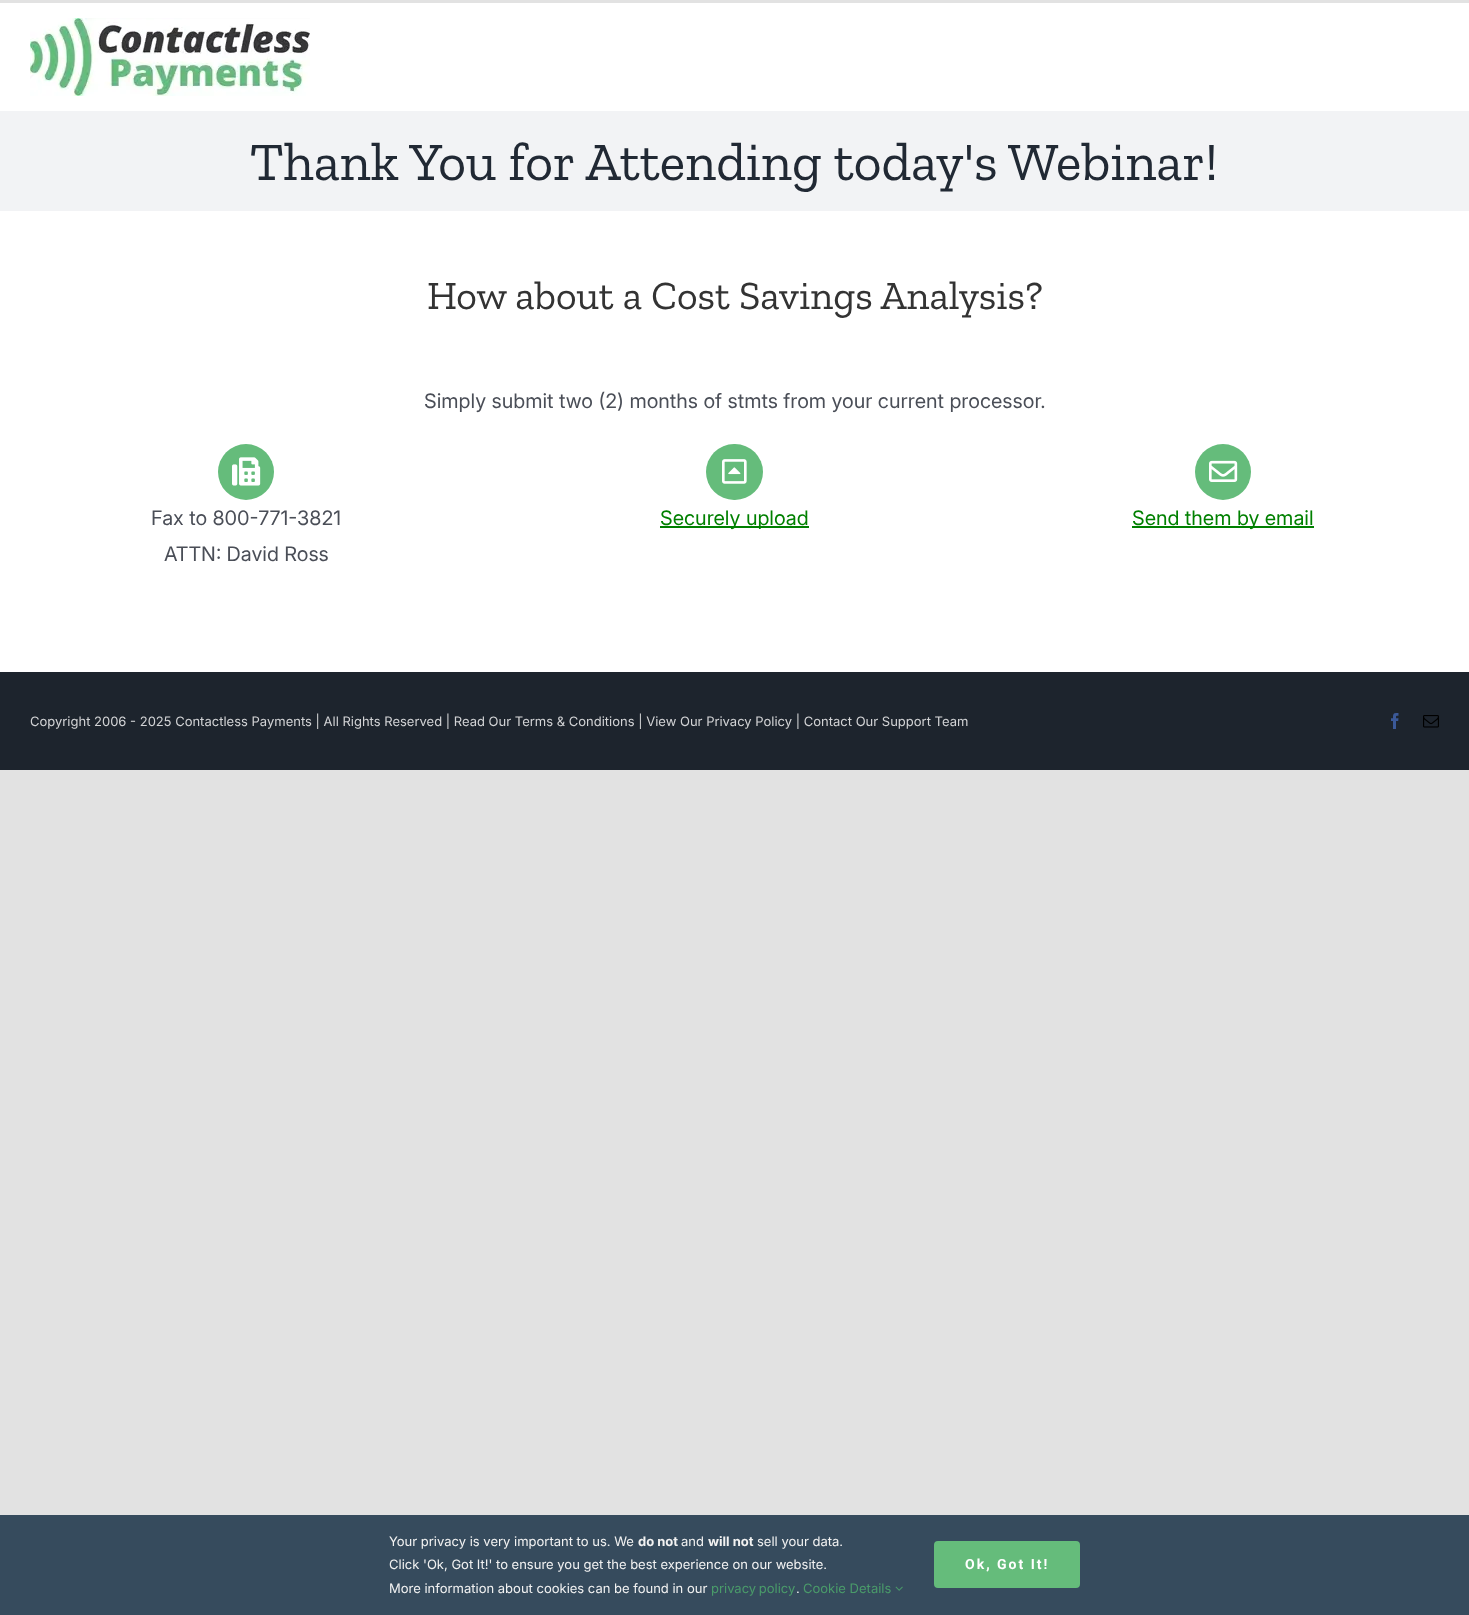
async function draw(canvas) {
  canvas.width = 1469;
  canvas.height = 1615;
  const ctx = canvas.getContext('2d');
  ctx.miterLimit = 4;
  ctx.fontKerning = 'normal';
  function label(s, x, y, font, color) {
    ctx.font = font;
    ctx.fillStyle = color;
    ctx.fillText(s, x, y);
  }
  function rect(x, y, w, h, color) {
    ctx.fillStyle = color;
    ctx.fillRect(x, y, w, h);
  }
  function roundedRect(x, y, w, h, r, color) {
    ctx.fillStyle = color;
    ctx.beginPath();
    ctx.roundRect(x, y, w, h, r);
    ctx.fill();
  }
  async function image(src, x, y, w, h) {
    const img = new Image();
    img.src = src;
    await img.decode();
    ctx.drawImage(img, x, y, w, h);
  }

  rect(0, 0, 1469, 1615, '#e2e2e2');
  rect(0, 3, 1469, 669, '#fff');
  await image('assets/img1.png', 30, 18, 280, 78);
  rect(0, 111, 1469, 100, '#f2f3f5');
  label('Thank You for Attending today\'s Webinar!', 250, 180, '54px Zilla Slab', '#212934');
  label('How about a Cost Savings Analysis?', 427, 309, '40px Zilla Slab', '#333');
  label('Simply submit two (2) months of stmts from your current processor.', 424, 408, '20px Inter', '#4a4e57');
  ctx.fillStyle = '#65bc7b';
  ctx.beginPath();
  ctx.arc(246, 472, 28, 0, 2 * Math.PI);
  ctx.fill();
  await image('assets/img2.png', 232, 457, 29, 29);
  label('Fax to 800-771-3821', 151, 525, '20px Inter', '#4a4e57');
  label('ATTN: David Ross', 164, 561, '20px Inter', '#4a4e57');
  roundedRect(706, 444, 57, 56, 28, '#65bc7b');
  await image('assets/img3.png', 722, 459, 25, 25);
  rect(660, 526, 149, 2, '#008000');
  label('Securely upload', 660, 525, '20px Inter', '#008000');
  ctx.fillStyle = '#65bc7b';
  ctx.beginPath();
  ctx.arc(1223, 472, 28, 0, 2 * Math.PI);
  ctx.fill();
  await image('assets/img4.png', 1209, 460, 29, 22);
  rect(1132, 526, 182, 2, '#008000');
  label('Send them by email', 1132, 525, '20px Inter', '#008000');
  rect(0, 672, 1469, 98, '#1d242d');
  label('Copyright 2006 - 2025 Contactless Payments | All Rights Reserved | Read Our Terms & Conditions | View Our Privacy Policy | Contact Our Support Team', 30, 726, '13px "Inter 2"', '#d2d3d5');
  await image('assets/img5.png', 1391, 713, 8, 16);
  await image('assets/img6.png', 1423, 715, 16, 13);
  rect(0, 1515, 1469, 100, '#364b5d');
  label('Your privacy is very important to us. We', 389, 1546, '13px "Inter 2"', '#f2f2f2');
  label('do not', 638, 1546, 'bold 13px Inter', '#f2f2f2');
  label('and', 681, 1546, '13px "Inter 2"', '#f2f2f2');
  label('will not', 708, 1546, 'bold 13px Inter', '#f2f2f2');
  label('sell your data.', 757, 1546, '13px "Inter 2"', '#f2f2f2');
  label('Click \'Ok, Got It!\' to ensure you get the best experience on our website.', 389, 1569, '13px "Inter 2"', '#f2f2f2');
  label('More information about cookies can be found in our', 389, 1593, '13px "Inter 2"', '#f2f2f2');
  ctx.wordSpacing = '-1px';
  label('privacy policy', 711, 1593, '13px "Inter 2"', '#4a9b6a');
  ctx.wordSpacing = '0px';
  label('Cookie Details', 803, 1593, '13px "Inter 2"', '#4a9b6a');
  await image('assets/img7.png', 895, 1586, 8, 5);
  label('.', 796, 1593, '13px "Inter 2"', '#f2f2f2');
  ctx.fillStyle = '#65bc7b';
  ctx.beginPath();
  ctx.roundRect(935, 1542, 144, 45, 3);
  ctx.fill();
  ctx.strokeStyle = '#65bc7b';
  ctx.lineWidth = 2;
  ctx.stroke();
  ctx.letterSpacing = '2px';
  label('Ok, Got It!', 965, 1569, 'bold 14px Roboto', '#fff');
}

draw(document.querySelector('canvas'));
